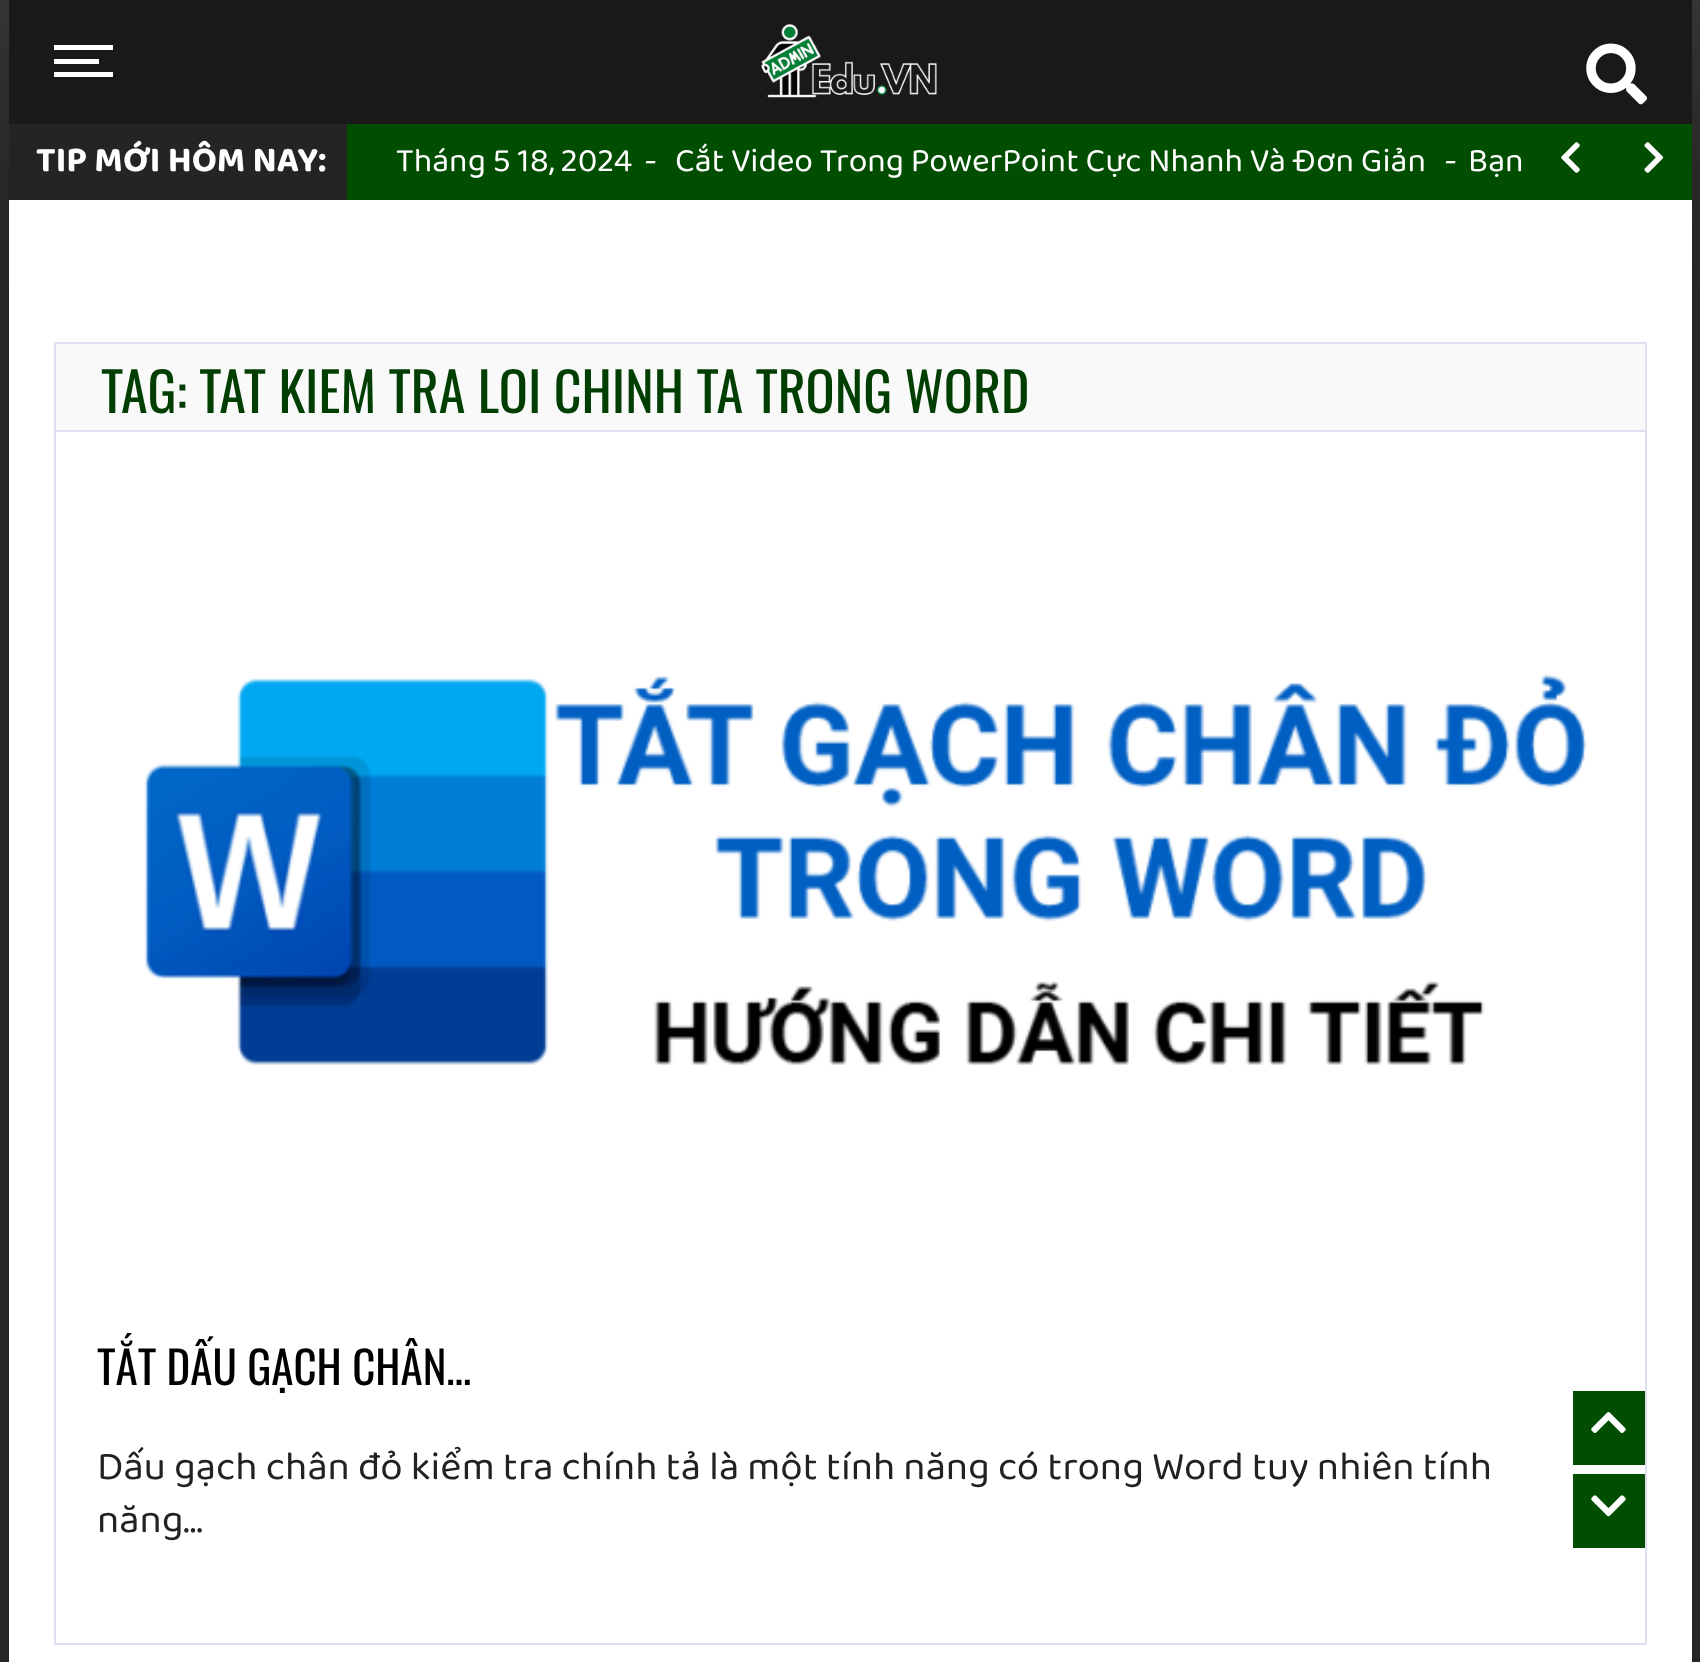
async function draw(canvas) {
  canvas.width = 1700;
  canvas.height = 1662;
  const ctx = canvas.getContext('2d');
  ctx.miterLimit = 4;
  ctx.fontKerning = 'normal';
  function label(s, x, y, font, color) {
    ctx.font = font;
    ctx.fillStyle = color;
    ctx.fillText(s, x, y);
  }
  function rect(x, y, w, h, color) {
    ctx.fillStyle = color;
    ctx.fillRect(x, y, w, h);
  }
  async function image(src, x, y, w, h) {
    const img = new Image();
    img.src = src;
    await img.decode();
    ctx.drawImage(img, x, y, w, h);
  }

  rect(0, 0, 1700, 1662, '#444');
  ctx.fillStyle = '#000000e6';
  ctx.filter = 'blur(140.5px)';
  ctx.beginPath();
  ctx.rect(9, 0, 1683, 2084);
  ctx.fill();
  ctx.filter = 'none';
  rect(9, 200, 1683, 1462, '#fff');
  rect(9, 0, 1683, 124, '#191919');
  rect(54, 45, 59, 5, '#fff');
  rect(54, 59, 45, 5, '#fff');
  rect(54, 72, 59, 5, '#fff');
  await image('assets/img1.png', 761, 23, 176, 75);
  await image('assets/img2.png', 1586, 43, 61, 62);
  rect(347, 124, 1345, 76, '#014e01');
  rect(9, 124, 338, 76, '#242424');
  label('TIP MỚI HÔM NAY:', 36, 171, 'bold 36px "Baloo 2"', '#fff');
  label('Tháng 5 18, 2024', 396, 171, '33.75px "Baloo 2"', '#fff');
  label('-', 644, 171, '33.75px "Baloo 2"', '#fff');
  label('Cắt Video Trong PowerPoint Cực Nhanh Và Đơn Giản', 675, 171, '33.75px "Baloo 2"', '#fff');
  label('-', 1444, 171, '33.75px "Baloo 2"', '#fff');
  label('Bạn', 1468, 171, '33.75px "Baloo 2"', '#fff');
  await image('assets/img3.png', 1561, 142, 19, 31);
  await image('assets/img4.png', 1644, 142, 20, 31);
  ctx.strokeStyle = '#dde1ef';
  ctx.lineWidth = 2;
  ctx.strokeRect(55, 343, 1591, 1301);
  rect(56, 344, 1589, 86, '#f9f9f9');
  rect(56, 430, 1589, 2, '#dde1ef');
  label('TAG: TAT KIEM TRA LOI CHINH TA TRONG WORD', 101, 413, '54px Oswald', '#013e01');
  await image('assets/img5.png', 144, 674, 1443, 391);
  label('TẮT DẤU GẠCH CHÂN…', 97, 1385, '45px Oswald', '#000');
  label('Dấu gạch chân đỏ kiểm tra chính tả là một tính năng có trong Word tuy nhiên tính', 97, 1479, '40.5px "Baloo 2"', '#222');
  label('năng…', 97, 1532, '40.5px "Baloo 2"', '#222');
  rect(1573, 1391, 72, 74, '#014e01');
  await image('assets/img6.png', 1591, 1412, 35, 21);
  rect(1573, 1474, 72, 74, '#014e01');
  await image('assets/img7.png', 1591, 1495, 35, 22);
}

draw(document.querySelector('canvas'));
